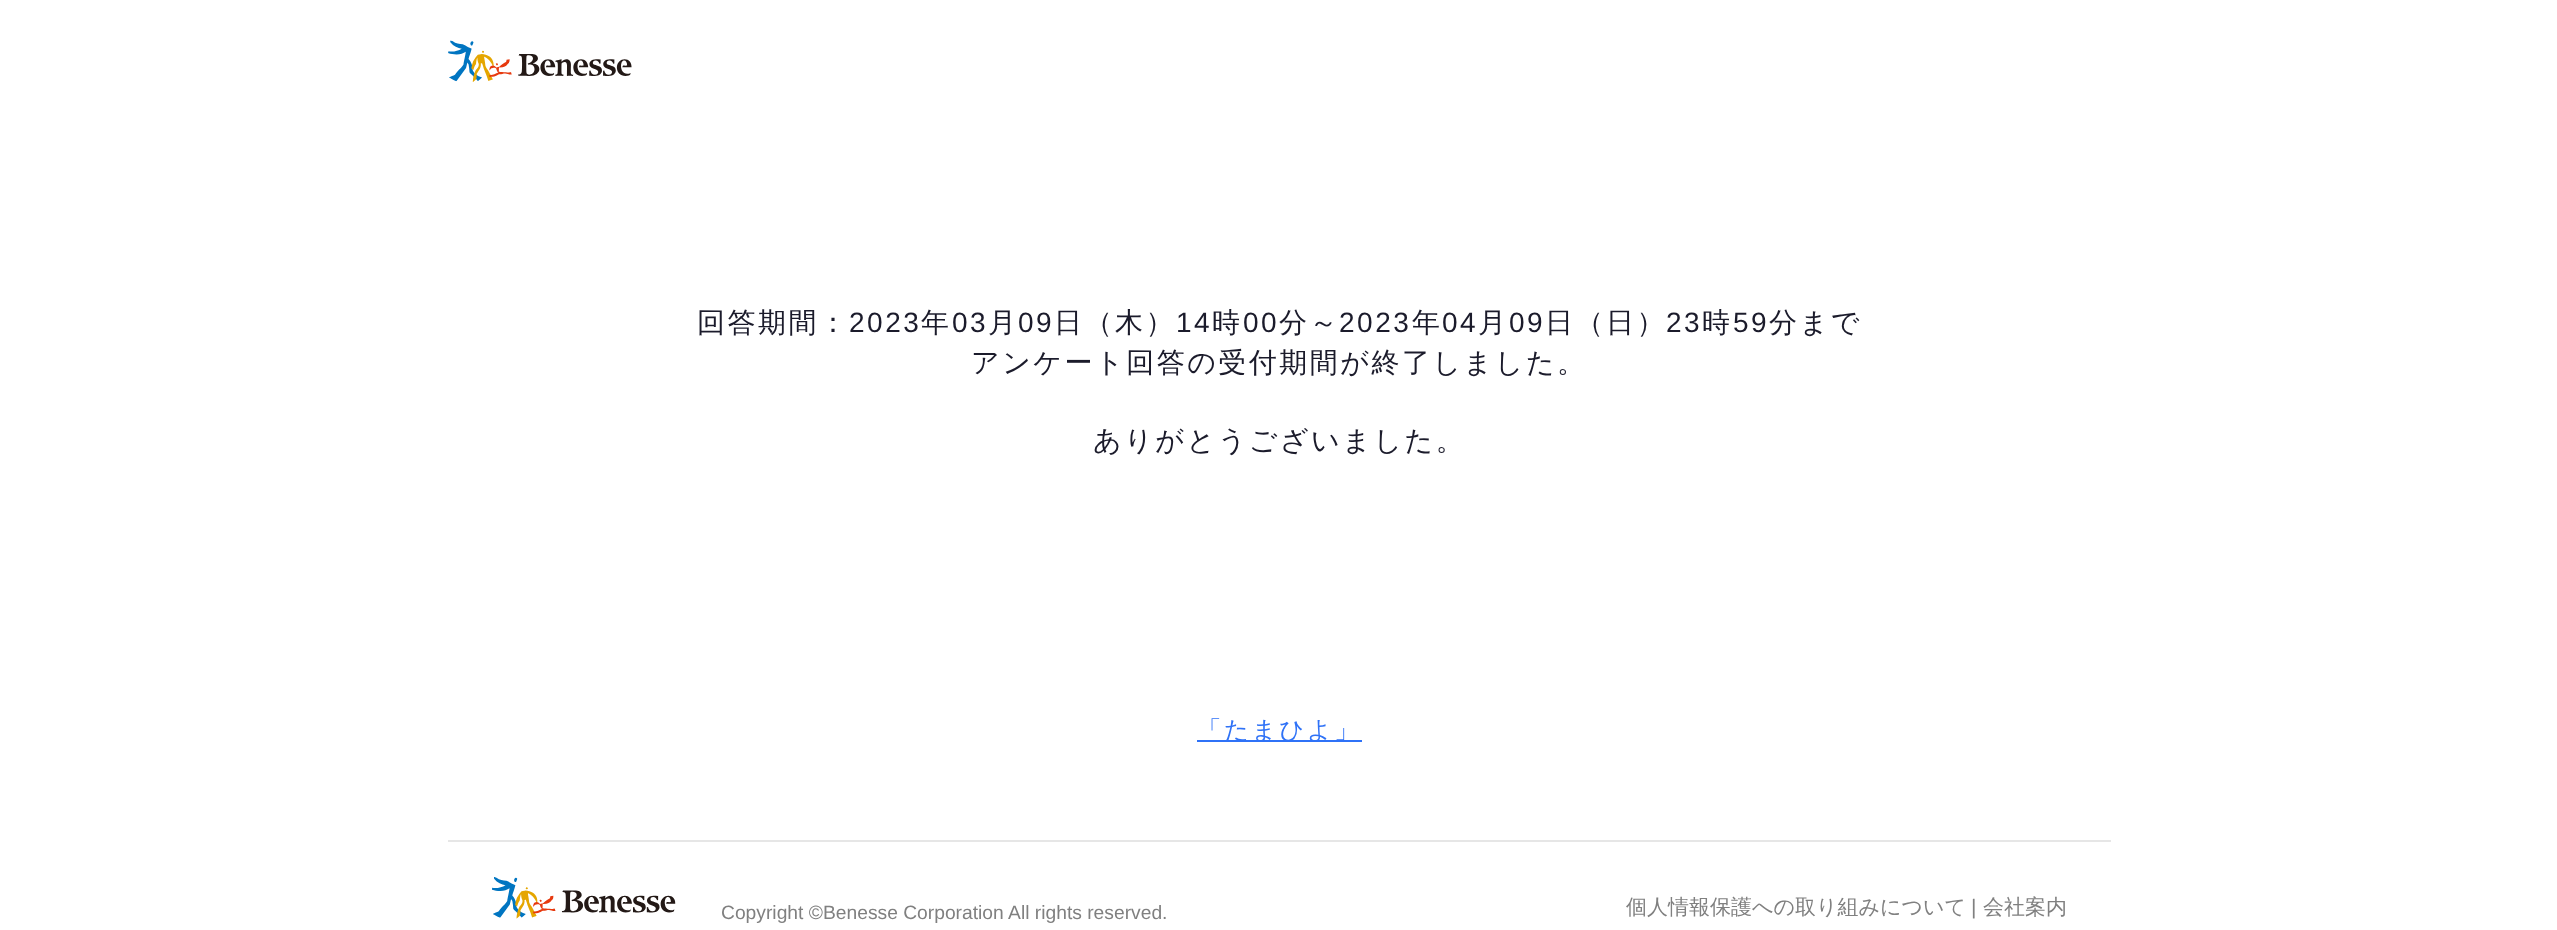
async function draw(canvas) {
  canvas.width = 2557;
  canvas.height = 930;
  const ctx = canvas.getContext('2d');
  ctx.miterLimit = 4;
  ctx.fontKerning = 'normal';
  function label(s, x, y, font, color) {
    ctx.font = font;
    ctx.fillStyle = color;
    ctx.fillText(s, x, y);
  }
  function rect(x, y, w, h, color) {
    ctx.fillStyle = color;
    ctx.fillRect(x, y, w, h);
  }
  async function image(src, x, y, w, h) {
    const img = new Image();
    img.src = src;
    await img.decode();
    ctx.drawImage(img, x, y, w, h);
  }

  rect(0, 0, 2557, 930, '#fff');
  await image('assets/img1.png', 448, 40, 184, 42);
  ctx.letterSpacing = '2.5px';
  label('回答期間：', 697, 332, '500 28px WenQuanYi Zen Hei', '#1b1b2b');
  label('2023', 849, 332, '28px Liberation Sans', '#1b1b2b');
  label('年', 921, 332, '500 28px WenQuanYi Zen Hei', '#1b1b2b');
  label('03', 952, 332, '28px Liberation Sans', '#1b1b2b');
  label('月', 988, 332, '500 28px WenQuanYi Zen Hei', '#1b1b2b');
  label('09', 1018, 332, '28px Liberation Sans', '#1b1b2b');
  label('日（木）', 1054, 332, '500 28px WenQuanYi Zen Hei', '#1b1b2b');
  label('14', 1176, 332, '28px Liberation Sans', '#1b1b2b');
  label('時', 1212, 332, '500 28px WenQuanYi Zen Hei', '#1b1b2b');
  label('00', 1243, 332, '28px Liberation Sans', '#1b1b2b');
  label('分～', 1279, 332, '500 28px WenQuanYi Zen Hei', '#1b1b2b');
  label('2023', 1339, 332, '28px Liberation Sans', '#1b1b2b');
  label('年', 1412, 332, '500 28px WenQuanYi Zen Hei', '#1b1b2b');
  label('04', 1442, 332, '28px Liberation Sans', '#1b1b2b');
  label('月', 1478, 332, '500 28px WenQuanYi Zen Hei', '#1b1b2b');
  label('09', 1509, 332, '28px Liberation Sans', '#1b1b2b');
  label('日（日）', 1545, 332, '500 28px WenQuanYi Zen Hei', '#1b1b2b');
  label('23', 1666, 332, '28px Liberation Sans', '#1b1b2b');
  label('時', 1702, 332, '500 28px WenQuanYi Zen Hei', '#1b1b2b');
  label('59', 1733, 332, '28px Liberation Sans', '#1b1b2b');
  label('分まで', 1769, 332, '500 28px WenQuanYi Zen Hei', '#1b1b2b');
  label('アンケート回答の受付期間が終了しました。', 971, 372, '500 28px WenQuanYi Zen Hei', '#1b1b2b');
  label('ありがとうございました。', 1093, 450, '500 28px WenQuanYi Zen Hei', '#1b1b2b');
  rect(1197, 740, 165, 2, '#2f72f7');
  label('「たまひよ」', 1197, 738, '500 24.5px WenQuanYi Zen Hei', '#2f72f7');
  rect(448, 840, 1663, 2, '#e6e6e6');
  await image('assets/img2.png', 492, 877, 184, 42);
  ctx.letterSpacing = '0px';
  label('Copyright ©Benesse Corporation All rights reserved.', 721, 919, '19.25px Liberation Sans', '#808080');
  label('個人情報保護への取り組みについて', 1626, 914, '500 21px WenQuanYi Zen Hei', '#808080');
  label('|', 1971, 914, '21px Liberation Sans', '#808080');
  label('会社案内', 1983, 914, '500 21px WenQuanYi Zen Hei', '#808080');
}

draw(document.querySelector('canvas'));
